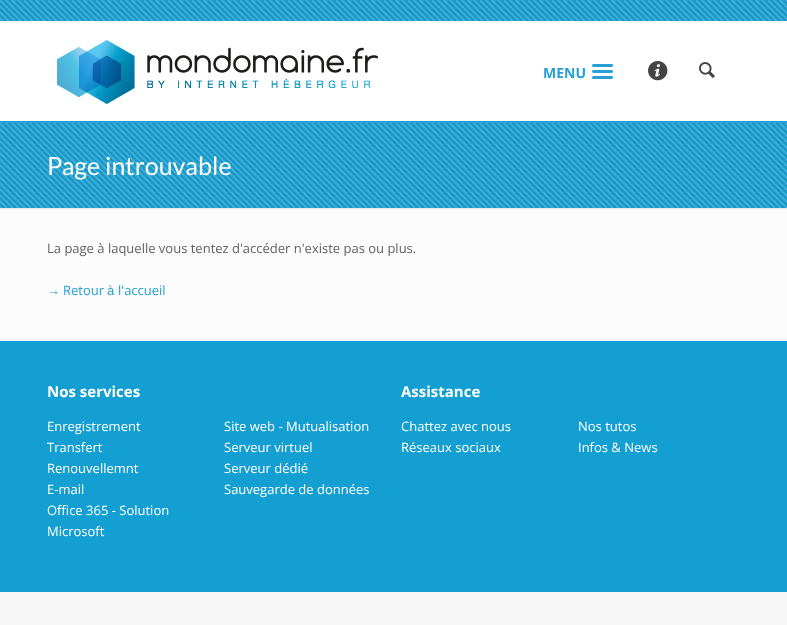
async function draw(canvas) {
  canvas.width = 787;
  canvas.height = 625;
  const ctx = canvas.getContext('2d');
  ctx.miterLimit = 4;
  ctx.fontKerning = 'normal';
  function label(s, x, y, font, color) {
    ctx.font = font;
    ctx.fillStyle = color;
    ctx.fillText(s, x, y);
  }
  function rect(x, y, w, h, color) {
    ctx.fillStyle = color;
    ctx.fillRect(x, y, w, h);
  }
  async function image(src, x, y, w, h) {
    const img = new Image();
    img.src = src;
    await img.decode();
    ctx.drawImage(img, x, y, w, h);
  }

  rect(0, 0, 787, 625, '#fcfcfc');
  rect(0, 121, 787, 2, '#269fd4');
  await image('assets/img1.png', 0, 0, 787, 21);
  rect(0, 21, 787, 100, '#fff');
  await image('assets/img2.png', 57, 40, 321, 64);
  label('MENU', 543, 78, 'bold 14px Open Sans', '#269fd4');
  await image('assets/img3.png', 592, 64, 21, 15);
  await image('assets/img4.png', 648, 61, 20, 20);
  await image('assets/img5.png', 699, 62, 16, 16);
  await image('assets/img6.png', 0, 123, 787, 85);
  label('Page introuvable', 47, 175, '25px Lato', '#fff');
  await image('assets/img7.png', 0, 208, 787, 2);
  label('La page à laquelle vous tentez d\'accéder n\'existe pas ou plus.', 47, 253, '13px Open Sans', '#626262');
  label('→', 47, 295, '13px Liberation Sans', '#269fd4');
  label('Retour', 63, 295, '13px Open Sans', '#269fd4');
  label('à', 107, 295, '13px Liberation Sans', '#269fd4');
  label('l\'accueil', 118, 295, '13px Open Sans', '#269fd4');
  rect(0, 341, 787, 251, '#149fd2');
  label('Nos services', 47, 397, 'bold 15px Open Sans', '#fff');
  label('Enregistrement', 47, 431, '13px Open Sans', '#fff');
  label('Transfert', 47, 452, '13px Open Sans', '#fff');
  label('Renouvellemnt', 47, 473, '13px Open Sans', '#fff');
  label('E-mail', 47, 494, '13px Open Sans', '#fff');
  label('Office 365 - Solution', 47, 515, '13px Open Sans', '#fff');
  label('Microsoft', 47, 536, '13px Open Sans', '#fff');
  label('Site web - Mutualisation', 224, 431, '13px Open Sans', '#fff');
  label('Serveur virtuel', 224, 452, '13px Open Sans', '#fff');
  label('Serveur dédié', 224, 473, '13px Open Sans', '#fff');
  label('Sauvegarde de données', 224, 494, '13px Open Sans', '#fff');
  label('Assistance', 401, 397, 'bold 15px Open Sans', '#fff');
  label('Chattez avec nous', 401, 431, '13px Open Sans', '#fff');
  label('Réseaux sociaux', 401, 452, '13px Open Sans', '#fff');
  label('Nos tutos', 578, 431, '13px Open Sans', '#fff');
  label('Infos & News', 578, 452, '13px Open Sans', '#fff');
  rect(0, 592, 787, 33, '#f6f6f6');
}

draw(document.querySelector('canvas'));
